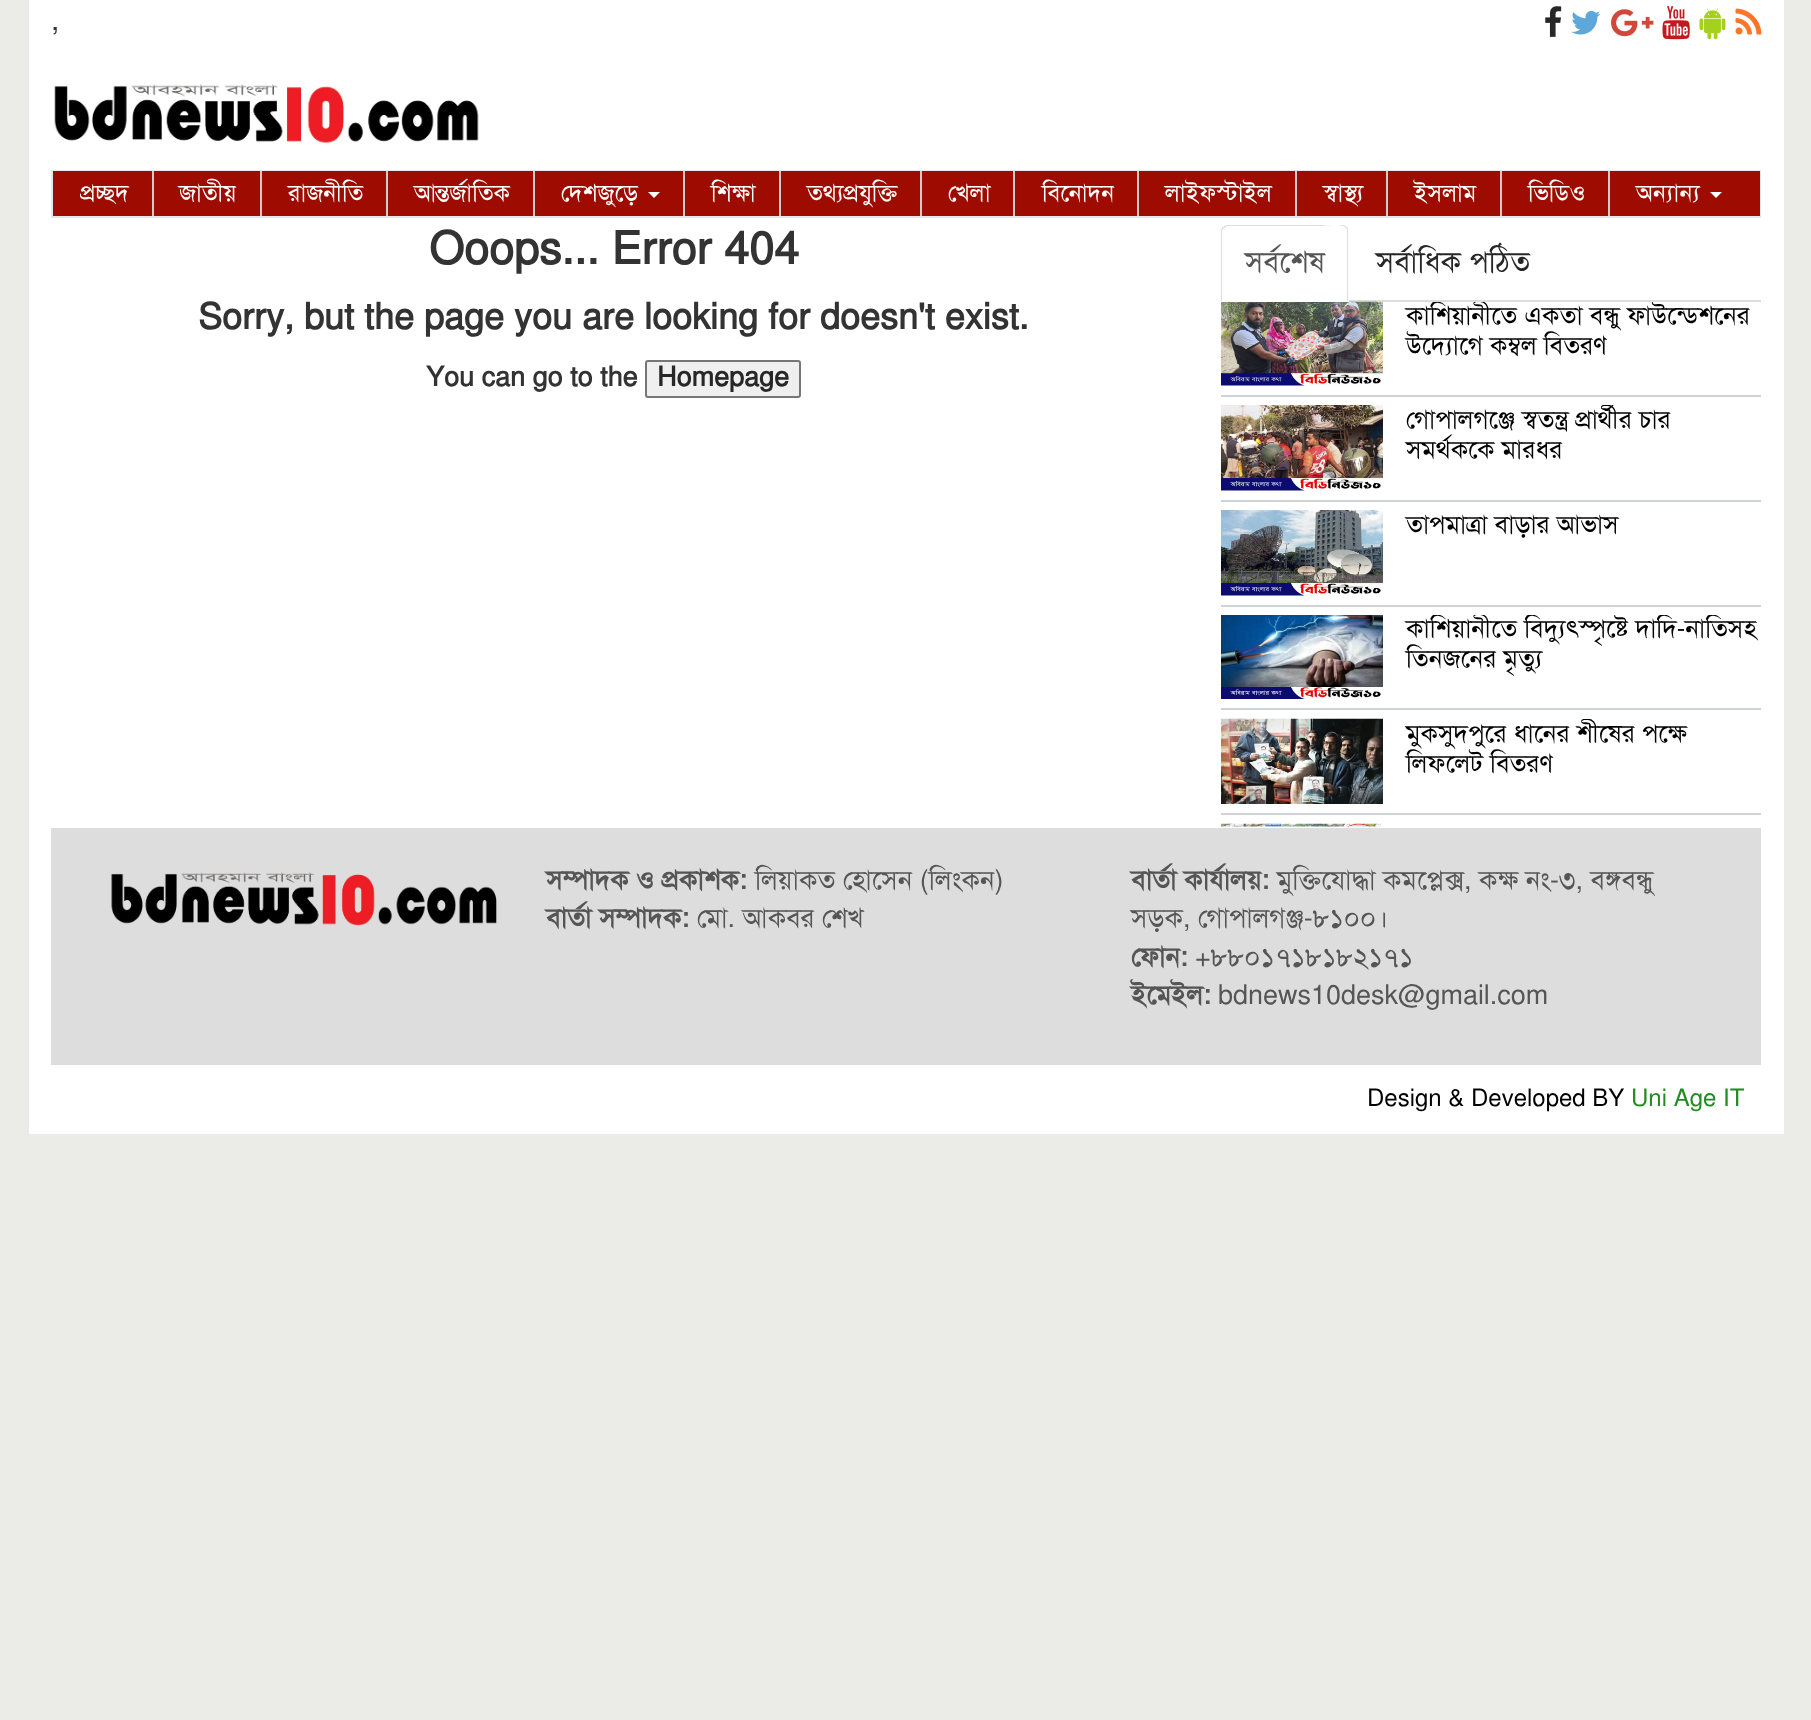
async function draw(canvas) {
  canvas.width = 1811;
  canvas.height = 1720;
  const ctx = canvas.getContext('2d');
  ctx.miterLimit = 4;
  ctx.fontKerning = 'normal';
  function label(s, x, y, font, color) {
    ctx.font = font;
    ctx.fillStyle = color;
    ctx.fillText(s, x, y);
  }
  function rect(x, y, w, h, color) {
    ctx.fillStyle = color;
    ctx.fillRect(x, y, w, h);
  }
  async function image(src, x, y, w, h) {
    const img = new Image();
    img.src = src;
    await img.decode();
    ctx.drawImage(img, x, y, w, h);
  }
  let path;

  rect(0, 0, 1811, 1720, '#ebece7');
  rect(29, 0, 1755, 1134, '#fff');
  label(',', 51, 30, '30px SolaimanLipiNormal', '#333');
  await image('assets/img1.png', 1545, 6, 17, 31);
  await image('assets/img2.png', 1571, 10, 30, 25);
  await image('assets/img3.png', 1611, 9, 43, 28);
  await image('assets/img4.png', 1662, 6, 28, 34);
  await image('assets/img5.png', 1699, 8, 27, 32);
  await image('assets/img6.png', 1735, 8, 27, 27);
  await image('assets/img7.png', 54, 84, 425, 60);
  ctx.strokeStyle = '#e7e7e7';
  ctx.lineWidth = 2;
  ctx.strokeRect(52, 171, 1708, 46);
  rect(53, 171, 1707, 45, '#9e0c01');
  rect(152, 171, 2, 45, '#ccc');
  label('প্রচ্ছদ', 80, 201, '24px SolaimanLipiNormal', '#fff');
  rect(260, 171, 2, 45, '#ccc');
  label('জাতীয়', 179, 201, '24px SolaimanLipiNormal', '#fff');
  rect(386, 171, 2, 45, '#ccc');
  label('রাজনীতি', 288, 201, '24px SolaimanLipiNormal', '#fff');
  rect(533, 171, 2, 45, '#ccc');
  label('আন্তর্জাতিক', 414, 201, '24px SolaimanLipiNormal', '#fff');
  rect(683, 171, 2, 45, '#ccc');
  label('দেশজুড়ে', 561, 201, '24px SolaimanLipiNormal', '#fff');
  path = new Path2D('M648 192H660L654 198Z');
  ctx.fill(path);
  rect(779, 171, 2, 45, '#ccc');
  label('শিক্ষা', 711, 201, '24px SolaimanLipiNormal', '#fff');
  rect(920, 171, 2, 45, '#ccc');
  label('তথ্যপ্রযুক্তি', 807, 201, '24px SolaimanLipiNormal', '#fff');
  rect(1013, 171, 2, 45, '#ccc');
  label('খেলা', 948, 201, '24px SolaimanLipiNormal', '#fff');
  rect(1137, 171, 2, 45, '#ccc');
  label('বিনোদন', 1042, 201, '24px SolaimanLipiNormal', '#fff');
  rect(1295, 171, 2, 45, '#ccc');
  label('লাইফস্টাইল', 1165, 201, '24px SolaimanLipiNormal', '#fff');
  rect(1386, 171, 2, 45, '#ccc');
  label('স্বাস্থ্য', 1323, 201, '24px SolaimanLipiNormal', '#fff');
  rect(1500, 171, 2, 45, '#ccc');
  label('ইসলাম', 1414, 201, '24px SolaimanLipiNormal', '#fff');
  rect(1608, 171, 2, 45, '#ccc');
  label('ভিডিও', 1528, 201, '24px SolaimanLipiNormal', '#fff');
  label('অন্যান্য', 1636, 201, '24px SolaimanLipiNormal', '#fff');
  path = new Path2D('M1710 192H1722L1716 198Z');
  ctx.fill(path);
  label('Ooops... Error 404', 429, 264, 'bold 45px SolaimanLipiNormal', '#333');
  label('Sorry, but the page you are looking for doesn\'t exist.', 198, 329, 'bold 36px SolaimanLipiNormal', '#333');
  label('You can go to the', 426, 386, 'bold 27px SolaimanLipiNormal', '#333');
  ctx.fillStyle = '#efefef';
  ctx.beginPath();
  ctx.roundRect(646, 361, 154, 36, 2);
  ctx.fill();
  ctx.strokeStyle = '#767676';
  ctx.stroke();
  label('Homepage', 657, 386, 'bold 27px SolaimanLipiNormal', '#272727');
  rect(1349, 300, 412, 2, '#ddd');
  await image('assets/img8.png', 1221, 301, 162, 85);
  ctx.fillStyle = '#fff';
  ctx.beginPath();
  ctx.roundRect(1221, 225, 128, 77, [6, 6, 0, 0]);
  ctx.fill();
  ctx.fillStyle = '#ddd';
  path = new Path2D('M1227 225C1226 225 1224 226 1223 227L1224 228L1227 226H1323C1324 226 1341 223 1346 228L1347 227C1346 226 1344 225 1342 225Z');
  ctx.fill(path);
  path = new Path2D('M1347 227C1348 228 1348 230 1348 231V301L1347 300V231C1347 230 1347 229 1346 228Z');
  ctx.fill(path);
  path = new Path2D('M1221 302L1222 300V231L1224 228L1223 227C1222 228 1221 230 1221 231Z');
  ctx.fill(path);
  label('সর্বশেষ', 1245, 272, '30px SolaimanLipiNormal', '#555');
  label('সর্বাধিক পঠিত', 1376, 272, '30px SolaimanLipiNormal', '#272727');
  rect(1221, 395, 540, 2, '#cfd3d5');
  ctx.save();
  ctx.beginPath();
  ctx.rect(1221, 302, 540, 93);
  ctx.clip();
  label('কাশিয়ানীতে একতা বন্ধু ফাউন্ডেশনের', 1406, 324, '25.5px SolaimanLipiNormal', '#000');
  ctx.restore();
  label('উদ্যোগে কম্বল বিতরণ', 1406, 354, '25.5px SolaimanLipiNormal', '#000');
  rect(1221, 500, 540, 2, '#cfd3d5');
  await image('assets/img9.png', 1221, 405, 162, 86);
  ctx.save();
  ctx.beginPath();
  ctx.rect(1221, 405, 540, 95);
  ctx.clip();
  label('গোপালগঞ্জে স্বতন্ত্র প্রার্থীর চার', 1406, 428, '25.5px SolaimanLipiNormal', '#000');
  ctx.restore();
  label('সমর্থককে মারধর', 1406, 458, '25.5px SolaimanLipiNormal', '#000');
  rect(1221, 605, 540, 2, '#cfd3d5');
  await image('assets/img10.png', 1221, 510, 162, 86);
  label('তাপমাত্রা বাড়ার আভাস', 1406, 533, '25.5px SolaimanLipiNormal', '#000');
  rect(1221, 708, 540, 2, '#cfd3d5');
  await image('assets/img11.png', 1221, 615, 162, 84);
  ctx.save();
  ctx.beginPath();
  ctx.rect(1221, 615, 540, 93);
  ctx.clip();
  label('কাশিয়ানীতে বিদ্যুৎস্পৃষ্টে দাদি-নাতিসহ', 1406, 637, '25.5px SolaimanLipiNormal', '#000');
  ctx.restore();
  label('তিনজনের মৃত্যু', 1406, 667, '25.5px SolaimanLipiNormal', '#000');
  rect(1221, 813, 540, 2, '#cfd3d5');
  await image('assets/img12.png', 1221, 718, 162, 86);
  ctx.save();
  ctx.beginPath();
  ctx.rect(1221, 719, 540, 94);
  ctx.clip();
  label('মুকসুদপুরে ধানের শীষের পক্ষে', 1406, 742, '25.5px SolaimanLipiNormal', '#000');
  ctx.restore();
  label('লিফলেট বিতরণ', 1406, 772, '25.5px SolaimanLipiNormal', '#000');
  await image('assets/img13.png', 1221, 823, 162, 4);
  rect(51, 828, 1710, 237, '#ddd');
  await image('assets/img14.png', 111, 872, 386, 54);
  label('সম্পাদক ও প্রকাশক:', 546, 889, 'bold 27px SolaimanLipiNormal', '#555');
  label('লিয়াকত হোসেন (লিংকন)', 755, 889, '27px SolaimanLipiNormal', '#555');
  label('বার্তা সম্পাদক:', 546, 927, 'bold 27px SolaimanLipiNormal', '#555');
  label('মো. আকবর শেখ', 697, 927, '27px SolaimanLipiNormal', '#555');
  label('বার্তা কার্যালয়:', 1131, 889, 'bold 27px SolaimanLipiNormal', '#555');
  label('মুক্তিযোদ্ধা কমপ্লেক্স, কক্ষ নং-৩, বঙ্গবন্ধু', 1277, 889, '27px SolaimanLipiNormal', '#555');
  label('সড়ক, গোপালগঞ্জ-৮১০০।', 1131, 927, '27px SolaimanLipiNormal', '#555');
  label('ফোন:', 1131, 966, 'bold 27px SolaimanLipiNormal', '#555');
  label('+৮৮০১৭১৮১৮২১৭১', 1195, 966, '27px SolaimanLipiNormal', '#555');
  label('ইমেইল:', 1131, 1004, 'bold 27px SolaimanLipiNormal', '#555');
  label('bdnews10desk@gmail.com', 1218, 1004, '27px SolaimanLipiNormal', '#555');
  label('Design & Developed BY', 1367, 1106, '24px SolaimanLipiNormal', '#000');
  label('Uni Age IT', 1631, 1106, '24px SolaimanLipiNormal', '#228b22');
}

draw(document.querySelector('canvas'));
